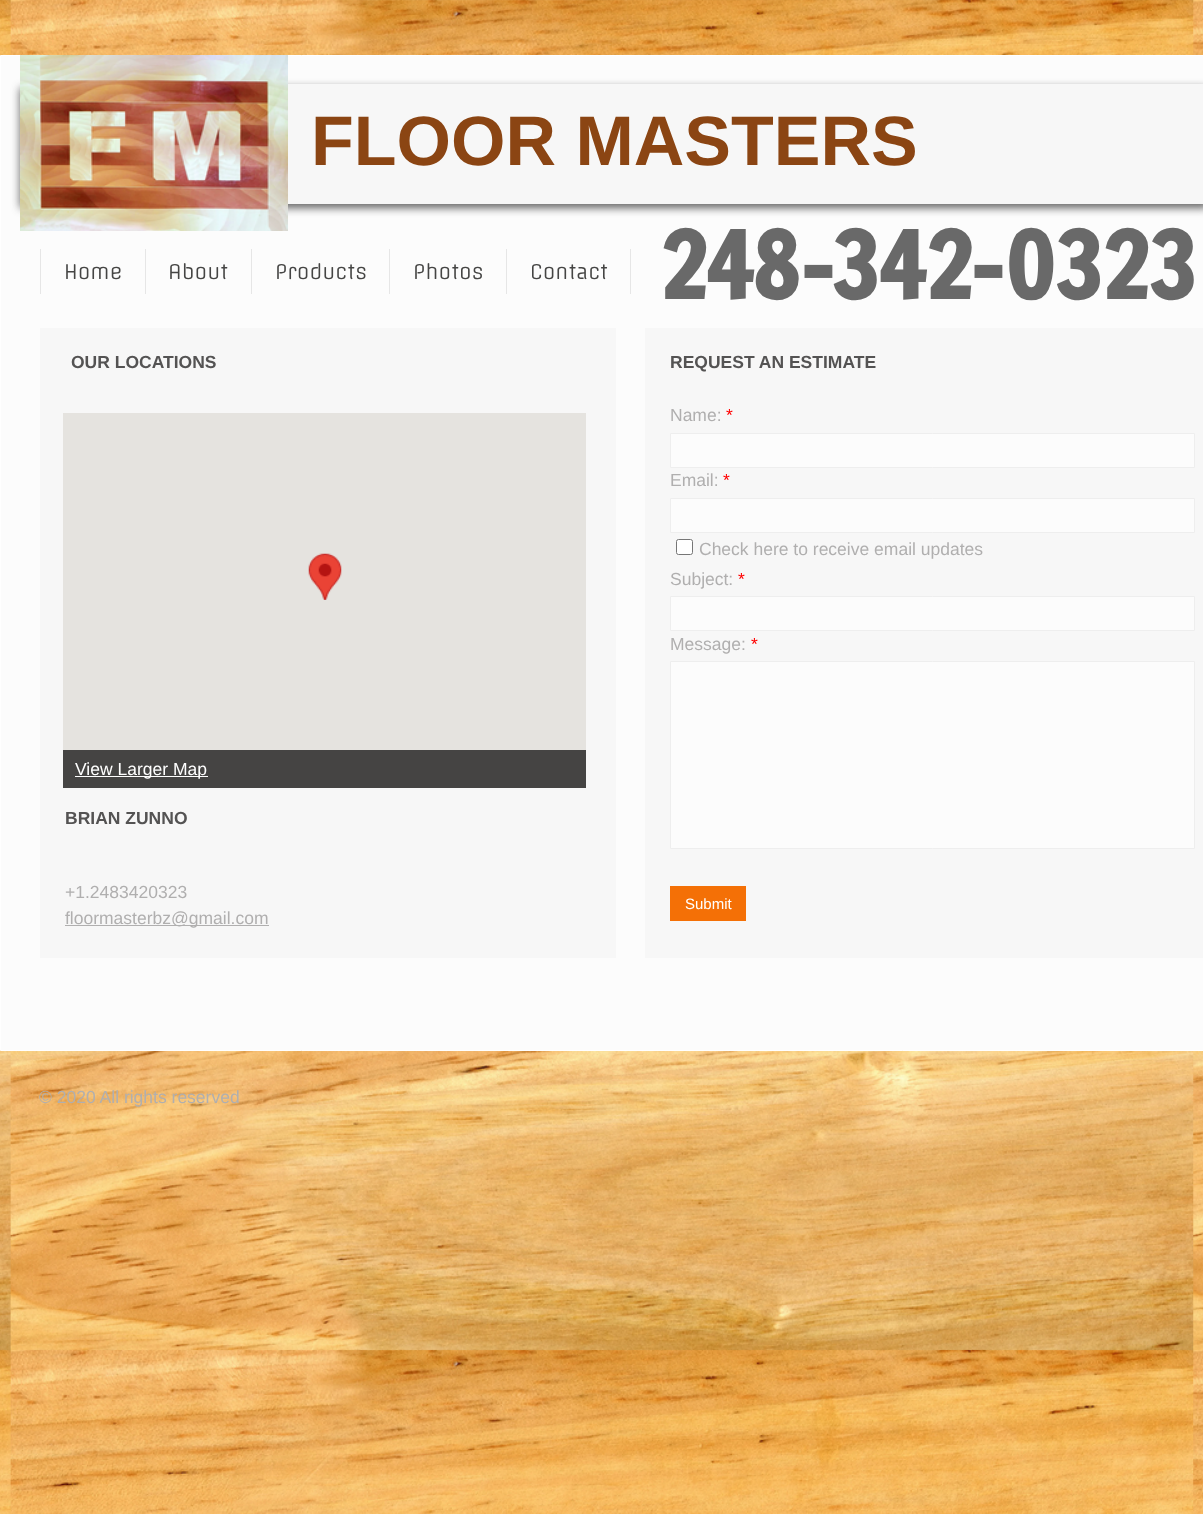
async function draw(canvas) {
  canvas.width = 1203;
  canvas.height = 1514;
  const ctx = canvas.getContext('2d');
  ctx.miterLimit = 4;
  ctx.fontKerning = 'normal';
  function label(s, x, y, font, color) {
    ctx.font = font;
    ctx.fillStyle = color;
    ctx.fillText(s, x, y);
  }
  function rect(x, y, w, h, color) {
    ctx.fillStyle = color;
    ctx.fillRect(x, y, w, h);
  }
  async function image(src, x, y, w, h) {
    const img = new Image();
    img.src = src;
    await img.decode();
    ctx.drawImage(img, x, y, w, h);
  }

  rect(0, 0, 1203, 1514, '#fff');
  await image('assets/img1.png', 0, 0, 1203, 1514);
  ctx.fillStyle = '#fcfcfc';
  ctx.beginPath();
  ctx.rect(0.5, 55.5, 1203, 995);
  ctx.fill();
  ctx.strokeStyle = '#fff';
  ctx.stroke();
  ctx.fillStyle = '#323232bf';
  ctx.filter = 'blur(4.5px)';
  ctx.beginPath();
  ctx.rect(20, 88, 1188, 120);
  ctx.fill();
  ctx.filter = 'none';
  await image('assets/img2.png', 20, 55, 268, 176);
  rect(288, 84, 915, 120, '#f7f7f7');
  label('FLOOR MASTERS', 311, 165, 'bold 70px Liberation Sans', '#8b4513');
  rect(40, 249, 1, 45, '#e6e6e6');
  rect(145, 249, 1, 45, '#e6e6e6');
  label('Home', 64, 279, '20px Offside', '#454544');
  rect(251, 249, 1, 45, '#e6e6e6');
  label('About', 168, 279, '20px Offside', '#454544');
  rect(389, 249, 1, 45, '#e6e6e6');
  label('Products', 275, 279, '20px Offside', '#454544');
  rect(506, 249, 1, 45, '#e6e6e6');
  label('Photos', 413, 279, '20px Offside', '#454544');
  rect(630, 249, 1, 45, '#e6e6e6');
  label('Contact', 530, 279, '20px Offside', '#454544');
  label('248-342-0323', 660, 299, 'bold 90px Francois One', '#696969');
  rect(40, 328, 576, 630, '#f7f7f7');
  rect(645, 328, 558, 630, '#f7f7f7');
  label('OUR LOCATIONS', 71, 368, 'bold 17.5px Liberation Sans', '#545353');
  label('REQUEST AN ESTIMATE', 670, 368, 'bold 17.5px Liberation Sans', '#545353');
  rect(63, 413, 523, 337, '#e5e3df');
  await image('assets/img3.png', 308, 553, 34, 47);
  rect(63, 750, 523, 38, '#454443');
  rect(75, 776, 133, 1, '#fff');
  label('View Larger Map', 75, 775, '17.5px Liberation Sans', '#fff');
  label('Name:', 670, 421, '17.5px Liberation Sans', '#b0afaf');
  label('*', 726, 421, '17.5px Liberation Sans', '#f00');
  ctx.fillStyle = '#fcfcfc';
  ctx.beginPath();
  ctx.rect(670.5, 433.5, 524, 34);
  ctx.fill();
  ctx.strokeStyle = '#eee';
  ctx.stroke();
  label('Email:', 670, 486, '17.5px Liberation Sans', '#b0afaf');
  label('*', 723, 486, '17.5px Liberation Sans', '#f00');
  ctx.fillStyle = '#fcfcfc';
  ctx.beginPath();
  ctx.rect(670.5, 498.5, 524, 34);
  ctx.fill();
  ctx.stroke();
  ctx.fillStyle = '#fff';
  ctx.beginPath();
  ctx.roundRect(676.5, 539.5, 16, 15, 2);
  ctx.fill();
  ctx.strokeStyle = '#767676';
  ctx.stroke();
  label('Check here to receive email updates', 699, 555, '17.5px Liberation Sans', '#b0afaf');
  label('Subject:', 670, 585, '17.5px Liberation Sans', '#b0afaf');
  label('*', 738, 585, '17.5px Liberation Sans', '#f00');
  ctx.fillStyle = '#fcfcfc';
  ctx.beginPath();
  ctx.rect(670.5, 596.5, 524, 34);
  ctx.fill();
  ctx.strokeStyle = '#eee';
  ctx.stroke();
  label('Message:', 670, 650, '17.5px Liberation Sans', '#b0afaf');
  label('*', 751, 650, '17.5px Liberation Sans', '#f00');
  ctx.fillStyle = '#fcfcfc';
  ctx.beginPath();
  ctx.rect(670.5, 661.5, 524, 187);
  ctx.fill();
  ctx.stroke();
  rect(670, 886, 76, 35, '#f47006');
  label('Submit', 685, 909, '15px Liberation Sans', '#fff');
  label('BRIAN ZUNNO', 65, 824, 'bold 17.5px Liberation Sans', '#545353');
  label('+1.2483420323', 65, 898, '17.5px Liberation Sans', '#b0afaf');
  rect(65, 925, 204, 1, '#b0afaf');
  label('floormasterbz@gmail.com', 65, 924, '17.5px Liberation Sans', '#b0afaf');
  label('© 2020 All rights reserved', 39, 1103, '17.5px Liberation Sans', '#b0afaf');
}

draw(document.querySelector('canvas'));
